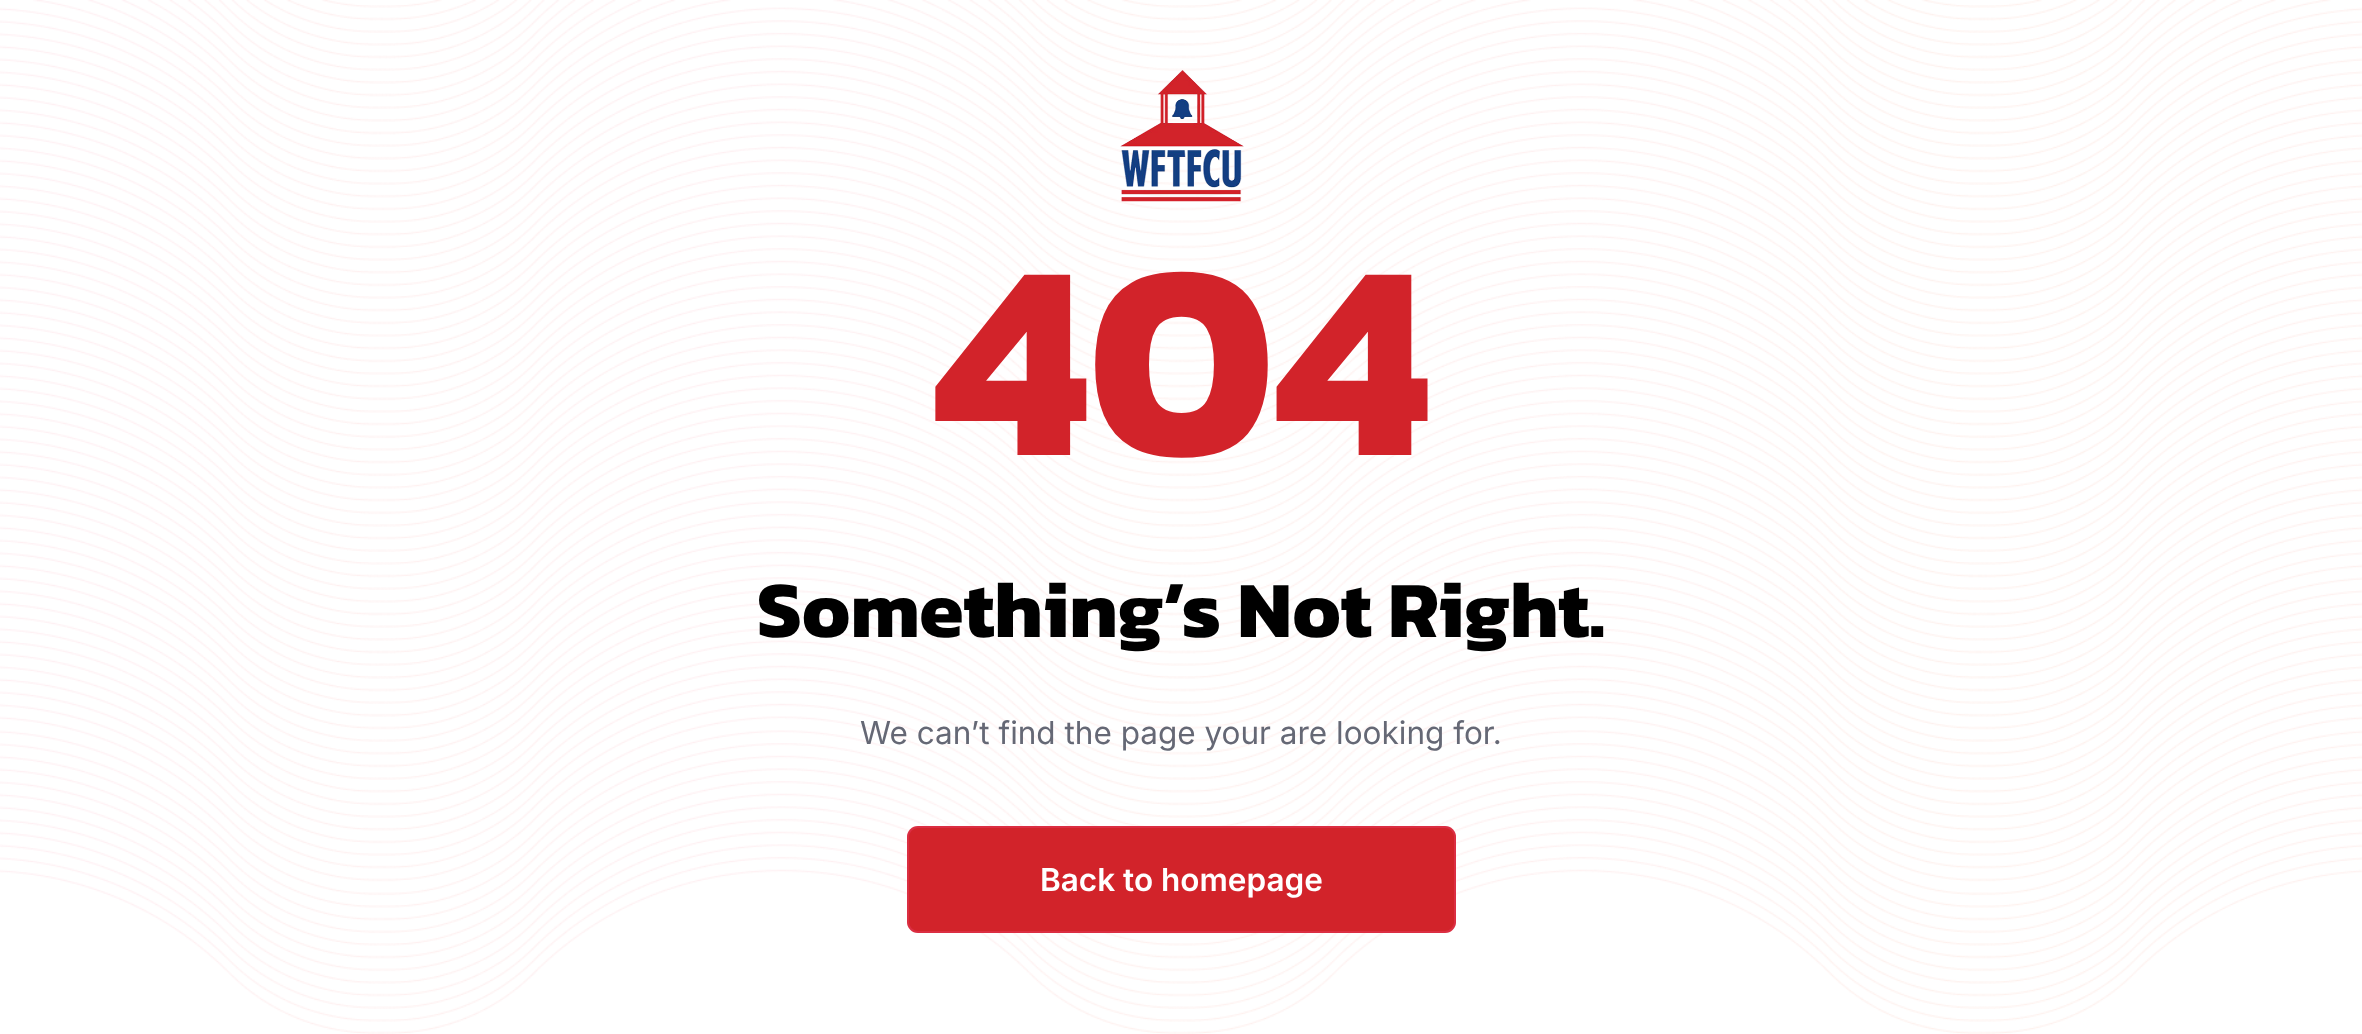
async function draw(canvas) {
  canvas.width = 2362;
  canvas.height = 1034;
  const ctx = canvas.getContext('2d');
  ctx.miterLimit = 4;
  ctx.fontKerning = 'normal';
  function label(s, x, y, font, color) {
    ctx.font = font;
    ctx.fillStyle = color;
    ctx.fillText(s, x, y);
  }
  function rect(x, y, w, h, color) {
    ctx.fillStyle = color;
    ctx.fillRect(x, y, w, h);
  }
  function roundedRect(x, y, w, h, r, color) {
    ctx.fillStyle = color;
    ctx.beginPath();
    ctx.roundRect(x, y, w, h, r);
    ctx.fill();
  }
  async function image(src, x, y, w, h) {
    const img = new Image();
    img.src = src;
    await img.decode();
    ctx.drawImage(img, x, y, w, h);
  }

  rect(0, 0, 2362, 1034, '#fff');
  await image('assets/img2.png', 0, 0, 2362, 1034);
  await image('assets/img1.png', 1120, 70, 124, 132);
  ctx.letterSpacing = '0.5px';
  label('404', 934, 455, 'bold 280px Kanit', '#d2232a');
  ctx.letterSpacing = '0px';
  label('Something’s Not Right.', 757, 637, 'bold 80.5px Kanit', '#000');
  label('We can’t find the page your are looking for.', 860, 744, '31.5px Inter', '#656875');
  roundedRect(907, 826, 549, 107, 11, '#d2232a');
  ctx.beginPath();
  ctx.roundRect(908, 827, 547, 105, 10);
  ctx.strokeStyle = '#fd59a733';
  ctx.lineWidth = 2;
  ctx.stroke();
  label('Back to homepage', 1040, 891, '600 31.5px Inter', '#fff');
}

draw(document.querySelector('canvas'));
